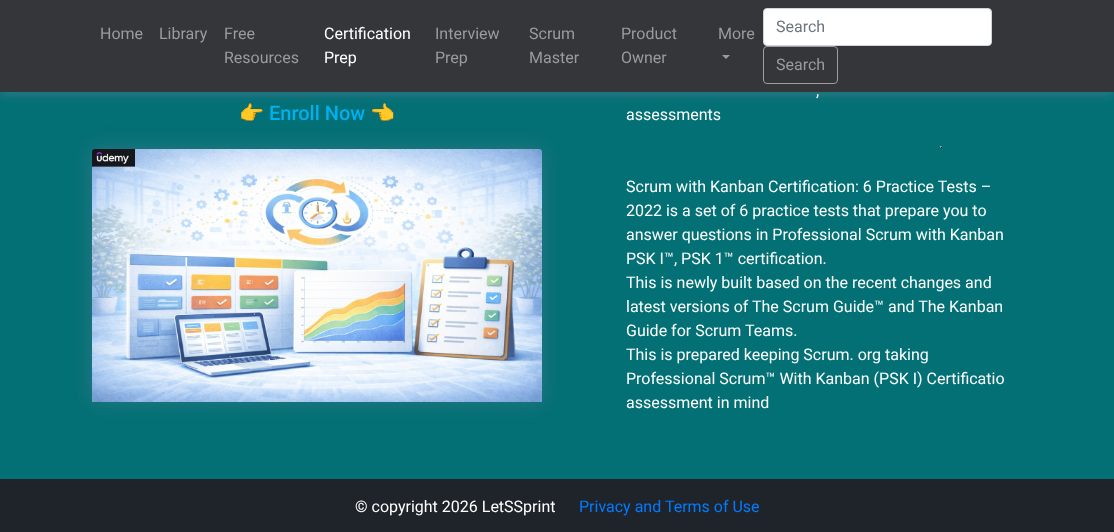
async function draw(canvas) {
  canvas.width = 1114;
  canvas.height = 532;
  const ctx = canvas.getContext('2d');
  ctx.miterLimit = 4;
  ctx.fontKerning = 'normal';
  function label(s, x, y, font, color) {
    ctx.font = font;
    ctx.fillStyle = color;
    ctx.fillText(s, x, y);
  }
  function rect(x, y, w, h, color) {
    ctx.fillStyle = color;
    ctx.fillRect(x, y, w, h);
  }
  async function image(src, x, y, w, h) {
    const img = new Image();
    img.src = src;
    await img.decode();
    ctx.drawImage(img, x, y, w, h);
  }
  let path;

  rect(0, 0, 1114, 532, '#fff');
  await image('assets/img1.png', 0, 92, 1114, 387);
  ctx.fillStyle = '#7f89a14d';
  ctx.filter = 'blur(5px)';
  ctx.beginPath();
  ctx.rect(0, 4, 1114, 92);
  ctx.fill();
  ctx.filter = 'none';
  rect(0, 0, 1114, 92, '#35363a');
  label('Home', 100, 39, '16px Roboto', '#9a9b9d');
  label('Library', 159, 39, '16px Roboto', '#9a9b9d');
  label('Free', 224, 39, '16px Roboto', '#9a9b9d');
  label('Resources', 224, 63, '16px Roboto', '#9a9b9d');
  label('Certification', 324, 39, '16px Roboto', '#fff');
  label('Prep', 324, 63, '16px Roboto', '#fff');
  label('Interview', 435, 39, '16px Roboto', '#9a9b9d');
  label('Prep', 435, 63, '16px Roboto', '#9a9b9d');
  label('Scrum', 529, 39, '16px Roboto', '#9a9b9d');
  label('Master', 529, 63, '16px Roboto', '#9a9b9d');
  label('Product', 621, 39, '16px Roboto', '#9a9b9d');
  label('Owner', 621, 63, '16px Roboto', '#9a9b9d');
  label('More', 718, 39, '16px Roboto', '#9a9b9d');
  path = new Path2D('M722 55H730L726 59Z');
  ctx.fill(path);
  ctx.fillStyle = '#fff';
  ctx.beginPath();
  ctx.roundRect(763.5, 8.5, 228, 37, 3.5);
  ctx.fill();
  ctx.strokeStyle = '#ced4da';
  ctx.stroke();
  label('Search', 776, 32, '16px Roboto', '#6c757d');
  ctx.beginPath();
  ctx.roundRect(763.5, 46.5, 74, 37, 3.5);
  ctx.strokeStyle = '#9e9e9e';
  ctx.stroke();
  label('Search', 776, 70, '16px Roboto', '#9a9b9d');
  ctx.fillStyle = '#7f89a14d';
  ctx.filter = 'blur(10px)';
  ctx.beginPath();
  ctx.rect(91, 148, 452, 255);
  ctx.fill();
  ctx.filter = 'none';
  label('👉️', 239, 120, '20px Noto Color Emoji', '#00b0f0');
  label('Enroll Now', 269, 120, '500 20px Roboto', '#00b0f0');
  label('👈️', 370, 120, '20px Noto Color Emoji', '#00b0f0');
  await image('assets/img2.png', 92, 149, 450, 253);
  label(',', 816, 96, '16px Roboto', '#fff');
  label('assessments', 626, 120, '16px Roboto', '#fff');
  label('Scrum with Kanban Certification: 6 Practice Tests –', 626, 192, '16px Roboto', '#fff');
  label('2022 is a set of 6 practice tests that prepare you to', 626, 216, '16px Roboto', '#fff');
  label('answer questions in Professional Scrum with Kanban', 626, 240, '16px Roboto', '#fff');
  label('PSK I™, PSK 1™ certification.', 626, 264, '16px Roboto', '#fff');
  label('This is newly built based on the recent changes and', 626, 288, '16px Roboto', '#fff');
  label('latest versions of The Scrum Guide™ and The Kanban', 626, 312, '16px Roboto', '#fff');
  label('Guide for Scrum Teams.', 626, 336, '16px Roboto', '#fff');
  label('This is prepared keeping Scrum. org taking', 626, 360, '16px Roboto', '#fff');
  label('Professional Scrum™ With Kanban (PSK I) Certificatio', 626, 384, '16px Roboto', '#fff');
  label('assessment in mind', 626, 408, '16px Roboto', '#fff');
  rect(0, 479, 1114, 53, '#1f242b');
  label('© copyright 2026 LetSSprint', 355, 512, '16px Roboto', '#fff');
  label('Privacy and Terms of Use', 579, 512, '16px Roboto', '#007bff');
}

draw(document.querySelector('canvas'));
